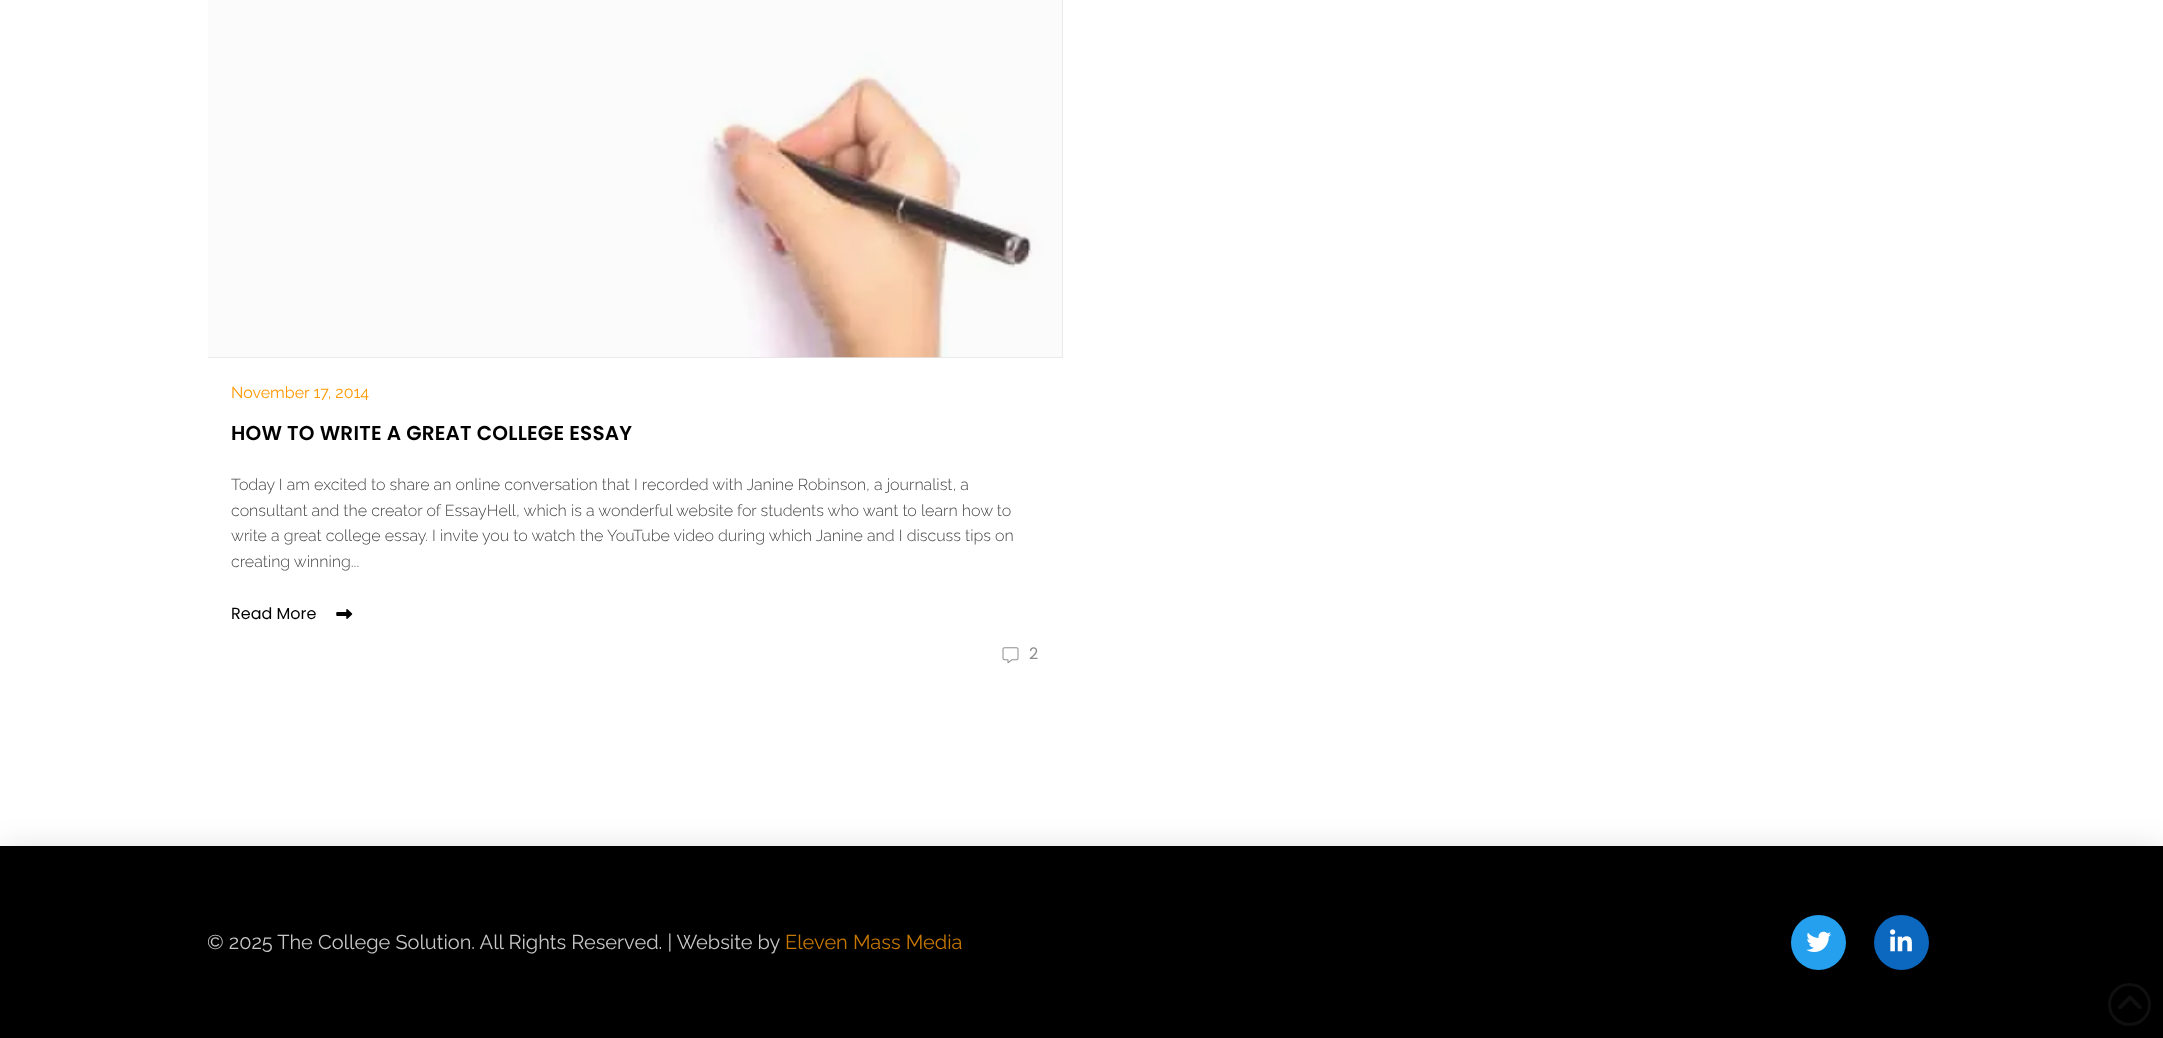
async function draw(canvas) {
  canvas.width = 2163;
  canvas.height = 1038;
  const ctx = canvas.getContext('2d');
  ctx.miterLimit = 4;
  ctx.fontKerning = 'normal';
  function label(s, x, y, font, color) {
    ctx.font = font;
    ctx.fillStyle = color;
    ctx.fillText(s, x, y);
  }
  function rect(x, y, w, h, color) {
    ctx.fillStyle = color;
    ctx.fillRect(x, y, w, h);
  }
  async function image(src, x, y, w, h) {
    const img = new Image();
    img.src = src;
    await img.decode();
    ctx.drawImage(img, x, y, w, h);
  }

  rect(0, 0, 2163, 1038, '#fff');
  rect(208, 0, 855, 358, '#e5e5e5');
  await image('assets/img1.png', 208, 0, 855, 358);
  label('November 17, 2014', 231, 398, '16px Raleway', '#f90');
  ctx.letterSpacing = '0.2px';
  label('HOW TO WRITE A GREAT COLLEGE ESSAY', 231, 440, '600 20px Poppins', '#000');
  ctx.letterSpacing = '0px';
  label('Today I am excited to share an online conversation that I recorded with Janine Robinson, a journalist, a', 231, 490, '300 16px Raleway', '#454545');
  label('consultant and the creator of EssayHell, which is a wonderful website for students who want to learn how to', 231, 516, '300 16px Raleway', '#454545');
  label('write a great college essay. I invite you to watch the YouTube video during which Janine and I discuss tips on', 231, 541, '300 16px Raleway', '#454545');
  label('creating winning...', 231, 567, '300 16px Raleway', '#454545');
  label('Read More', 231, 619, '16px Poppins', '#000');
  await image('assets/img2.png', 336, 609, 17, 10);
  await image('assets/img3.png', 1002, 647, 17, 17);
  label('2', 1029, 659, '16px Poppins', '#8e8e8e');
  ctx.fillStyle = '#00000026';
  ctx.filter = 'blur(15.5px)';
  ctx.beginPath();
  ctx.rect(0, 850, 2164, 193);
  ctx.fill();
  ctx.filter = 'none';
  rect(0, 846, 2163, 192, '#000');
  label('© 2025 The College Solution. All Rights Reserved. | Website by', 207, 949, '20px Raleway', '#c6c6c6');
  label('Eleven Mass Media', 785, 949, '20px Raleway', '#c67700');
  ctx.fillStyle = '#25a0ef';
  ctx.beginPath();
  ctx.arc(1818.5, 942.5, 27.5, 0, 2 * Math.PI);
  ctx.fill();
  await image('assets/img4.png', 1806, 931, 26, 21);
  ctx.fillStyle = '#0c67bf';
  ctx.beginPath();
  ctx.arc(1901.5, 942.5, 27.5, 0, 2 * Math.PI);
  ctx.fill();
  await image('assets/img5.png', 1890, 929, 22, 23);
  ctx.beginPath();
  ctx.arc(2129.5, 1004.5, 20, 0, 2 * Math.PI);
  ctx.strokeStyle = '#0f0f0f';
  ctx.lineWidth = 3;
  ctx.stroke();
  await image('assets/img6.png', 2118, 995, 24, 14);
}

draw(document.querySelector('canvas'));
